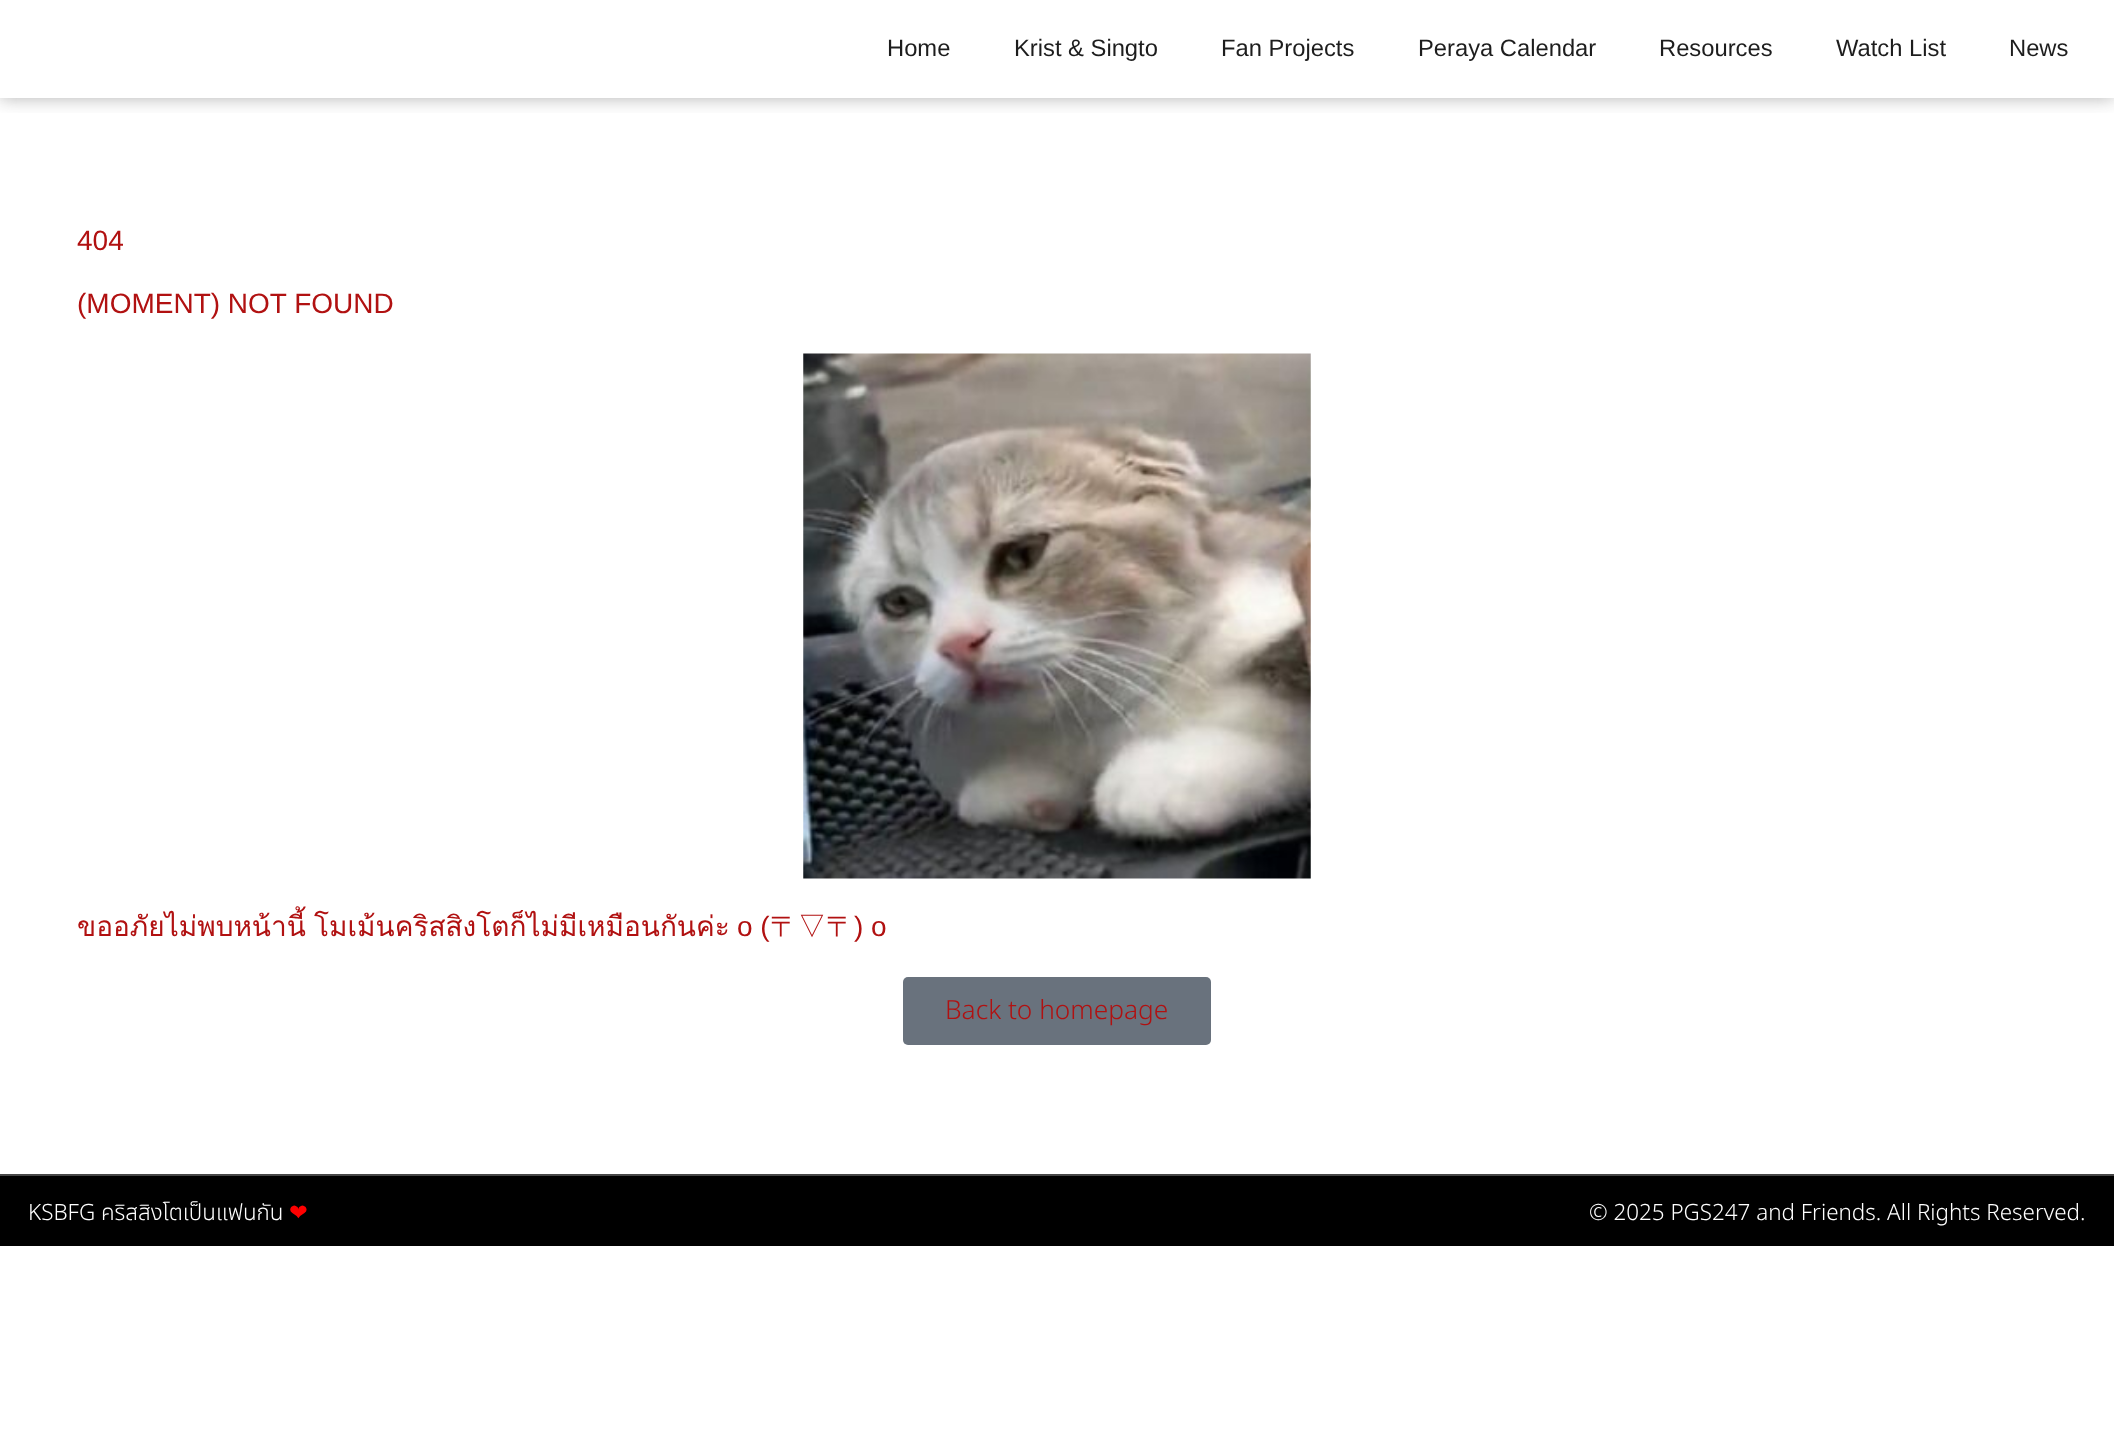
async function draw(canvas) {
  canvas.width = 2114;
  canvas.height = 1448;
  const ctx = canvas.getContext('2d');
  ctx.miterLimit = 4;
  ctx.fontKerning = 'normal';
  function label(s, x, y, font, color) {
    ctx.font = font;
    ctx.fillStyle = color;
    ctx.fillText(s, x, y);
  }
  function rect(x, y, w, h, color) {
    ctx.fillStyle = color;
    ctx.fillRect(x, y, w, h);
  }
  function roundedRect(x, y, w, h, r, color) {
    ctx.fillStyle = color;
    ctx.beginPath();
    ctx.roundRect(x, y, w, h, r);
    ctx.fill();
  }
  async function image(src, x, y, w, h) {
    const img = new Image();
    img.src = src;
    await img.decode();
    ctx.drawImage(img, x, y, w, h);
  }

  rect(0, 0, 2114, 1448, '#fff');
  ctx.save();
  ctx.beginPath();
  ctx.rect(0, 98, 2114, 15);
  ctx.clip();
  ctx.fillStyle = '#3f3f3f66';
  ctx.filter = 'blur(9px)';
  ctx.beginPath();
  ctx.rect(0, 0, 2114, 98);
  ctx.fill();
  ctx.filter = 'none';
  ctx.restore();
  label('Home', 887, 56, '23.75px Liberation Sans', '#1d1d1d');
  label('Krist & Singto', 1014, 56, '23.75px Liberation Sans', '#1d1d1d');
  label('Fan Projects', 1221, 56, '23.75px Liberation Sans', '#1d1d1d');
  label('Peraya Calendar', 1418, 56, '23.75px Liberation Sans', '#1d1d1d');
  label('Resources', 1659, 56, '23.75px Liberation Sans', '#1d1d1d');
  label('Watch List', 1836, 56, '23.75px Liberation Sans', '#1d1d1d');
  label('News', 2009, 56, '23.75px Liberation Sans', '#1d1d1d');
  label('404', 77, 250, '28px Liberation Sans', '#b11111');
  label('(MOMENT) NOT FOUND', 77, 313, '28px Liberation Sans', '#b11111');
  await image('assets/img1.png', 803, 353, 508, 526);
  label('ขออภัยไม่พบหน้านี้', 77, 936, '28px Loma', '#b11111');
  label('โมเม้นคริสสิงโตก็ไม่มีเหมือนกันค่ะ', 314, 936, '28px Loma', '#b11111');
  label('o (', 737, 936, '28px Liberation Sans', '#b11111');
  label('〒▽〒', 770, 936, '500 28px WenQuanYi Zen Hei', '#b11111');
  label(') o', 854, 936, '28px Liberation Sans', '#b11111');
  roundedRect(903, 977, 308, 68, 5, '#69727d');
  label('Back to homepage', 945, 1019, '300 26.25px Noto Sans Thai', '#b11111');
  rect(0, 1176, 2114, 70, '#000');
  rect(0, 1174, 2114, 2, '#474747');
  label('KSBFG คริสสิงโตเป็นแฟนกัน', 28, 1220, '300 22.4px Noto Sans Thai', '#fff');
  label('❤', 289, 1220, '22.4px DejaVu Sans', '#f00');
  label('© 2025 PGS247 and Friends. All Rights Reserved.', 1589, 1220, '300 22.4px Noto Sans Thai', '#fff');
}

draw(document.querySelector('canvas'));
